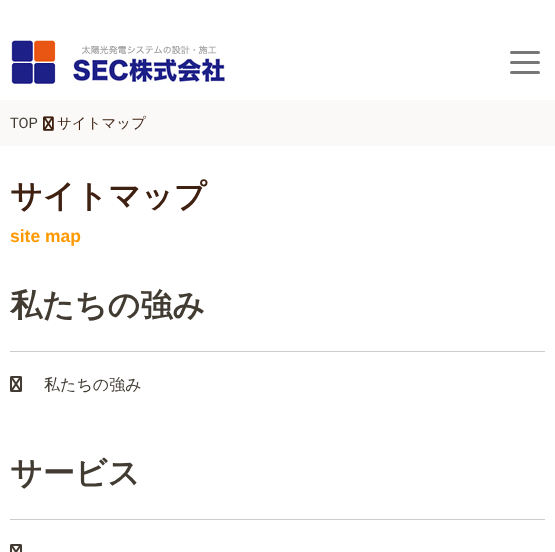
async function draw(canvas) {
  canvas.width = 555;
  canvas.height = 552;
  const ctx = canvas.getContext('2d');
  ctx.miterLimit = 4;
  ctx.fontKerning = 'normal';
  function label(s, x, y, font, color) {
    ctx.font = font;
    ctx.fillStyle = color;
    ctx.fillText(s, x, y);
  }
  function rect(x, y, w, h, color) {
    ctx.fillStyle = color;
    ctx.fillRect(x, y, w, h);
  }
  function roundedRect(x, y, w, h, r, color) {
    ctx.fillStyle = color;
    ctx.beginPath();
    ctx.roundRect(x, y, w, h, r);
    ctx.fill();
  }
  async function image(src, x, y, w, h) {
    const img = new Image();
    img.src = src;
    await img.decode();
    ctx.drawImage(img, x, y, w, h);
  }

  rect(0, 0, 555, 552, '#fff');
  await image('assets/img1.png', 10, 40, 215, 46);
  roundedRect(510, 61, 30, 3, 1.5, '#777');
  roundedRect(510, 51, 30, 3, 1.5, '#777');
  roundedRect(510, 71, 30, 3, 1.5, '#777');
  rect(0, 100, 555, 46, '#faf9f7');
  label('TOP', 10, 128, '14.5px Roboto', '#413b32');
  await image('assets/img2.png', 43, 116, 11, 15);
  label('サイトマップ', 57, 128, '500 14.5px WenQuanYi Zen Hei', '#3f2112');
  label('サイトマップ', 10, 207, 'bold 32px WenQuanYi Zen Hei', '#3f2112');
  label('site map', 10, 242, 'bold 17.5px Liberation Sans', '#fe9901');
  rect(10, 351, 535, 1, '#ccc');
  label('私たちの強み', 10, 316, 'bold 32px WenQuanYi Zen Hei', '#413b32');
  await image('assets/img3.png', 10, 376, 12, 16);
  label('私たちの強み', 44, 390, '500 16px WenQuanYi Zen Hei', '#413b32');
  rect(10, 519, 535, 1, '#ccc');
  label('サービス', 10, 484, 'bold 32px WenQuanYi Zen Hei', '#413b32');
  await image('assets/img4.png', 10, 544, 12, 8);
}

draw(document.querySelector('canvas'));
